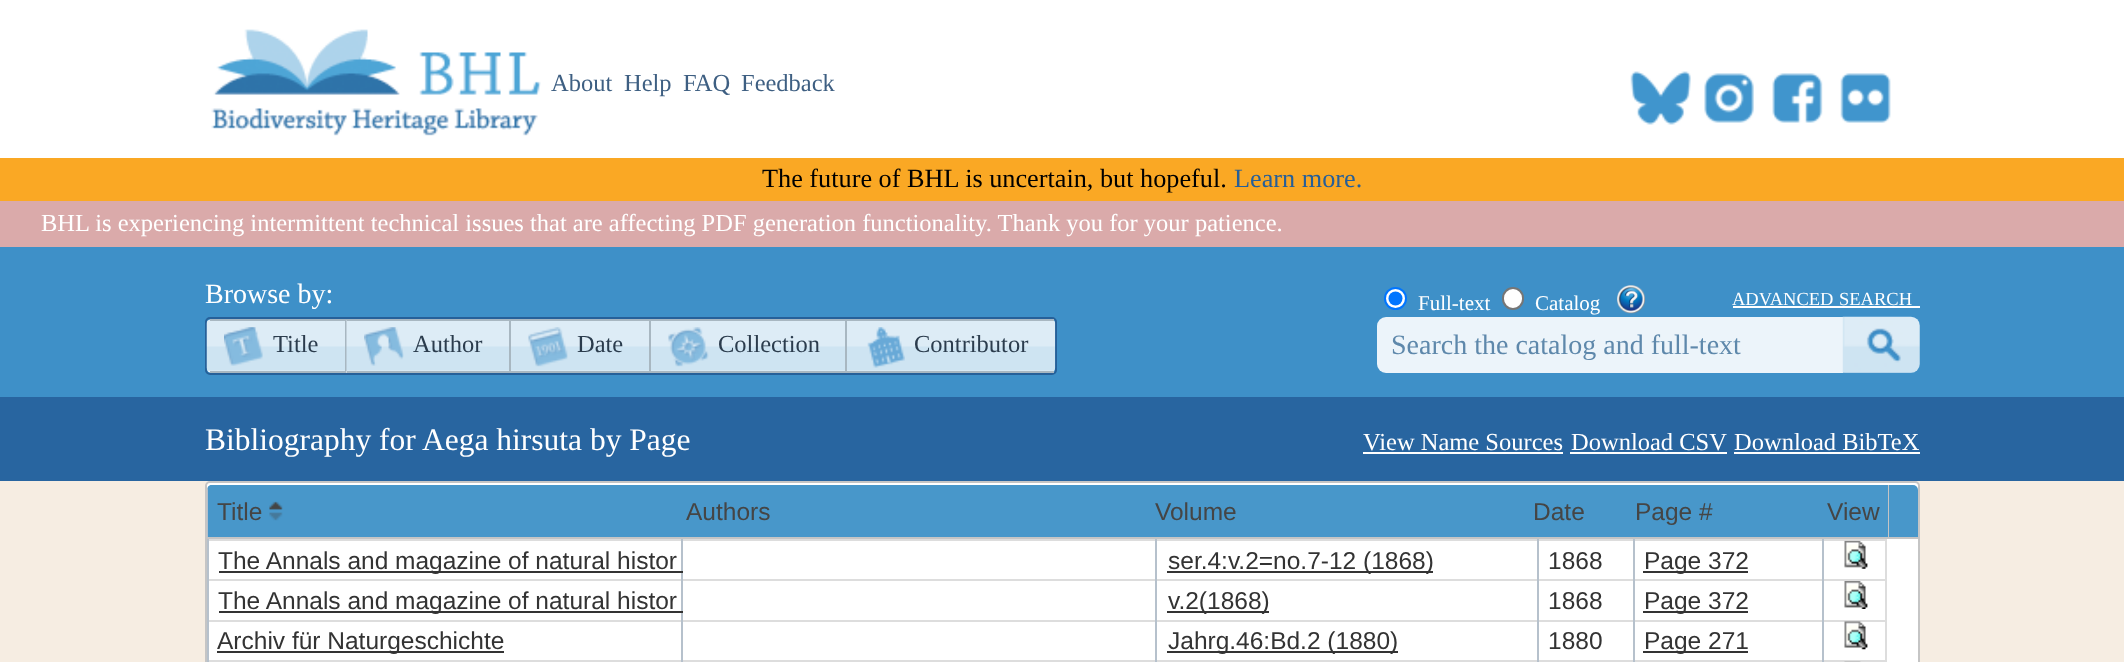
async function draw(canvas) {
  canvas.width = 2124;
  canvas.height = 662;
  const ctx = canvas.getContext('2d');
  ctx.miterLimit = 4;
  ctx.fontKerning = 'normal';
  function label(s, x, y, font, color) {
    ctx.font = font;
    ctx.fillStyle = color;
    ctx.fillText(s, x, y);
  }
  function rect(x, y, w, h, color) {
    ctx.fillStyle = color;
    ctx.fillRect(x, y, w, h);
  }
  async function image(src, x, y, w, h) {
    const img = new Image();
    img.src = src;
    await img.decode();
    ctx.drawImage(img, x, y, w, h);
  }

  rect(0, 0, 2124, 662, '#f6ede2');
  rect(0, 0, 2124, 158, '#fff');
  await image('assets/img1.png', 211, 29, 330, 107);
  label('About', 551, 91, '24.5px Liberation Serif', '#3e5f82');
  label('Help', 624, 91, '24.5px Liberation Serif', '#3e5f82');
  label('FAQ', 683, 91, '24.5px Liberation Serif', '#3e5f82');
  label('Feedback', 741, 91, '24.5px Liberation Serif', '#3e5f82');
  await image('assets/img2.png', 1630, 71, 61, 54);
  await image('assets/img3.png', 1704, 73, 50, 50);
  await image('assets/img4.png', 1772, 73, 51, 50);
  await image('assets/img5.png', 1840, 73, 51, 50);
  rect(0, 158, 2124, 43, '#faa824');
  label('The future of BHL is uncertain, but hopeful.', 762, 187, '26.25px Liberation Serif', '#000');
  label('Learn more.', 1234, 187, '26.25px Liberation Serif', '#265f99');
  rect(0, 201, 2124, 46, '#daaaaa');
  label('BHL is experiencing intermittent technical issues that are affecting PDF generation functionality. Thank you for your patience.', 41, 231, '24.5px Liberation Serif', '#fff');
  rect(0, 247, 2124, 150, '#3e90c8');
  label('Browse by:', 205, 303, '28px Liberation Serif', '#fff');
  ctx.beginPath();
  ctx.roundRect(206, 318, 850, 56, 4);
  ctx.strokeStyle = '#266099';
  ctx.lineWidth = 2;
  ctx.stroke();
  ctx.fillStyle = '#cee4f2';
  ctx.beginPath();
  ctx.roundRect(207, 319, 140, 54, [5, 0, 0, 5]);
  ctx.fill();
  await image('assets/img6.png', 206, 320, 139, 53);
  rect(210, 319, 137, 2, '#a8b7c1');
  rect(345, 319, 2, 54, '#a8b7c1');
  rect(210, 371, 137, 2, '#a8b7c1');
  await image('assets/img7.png', 224, 327, 39, 39);
  label('Title', 273, 352, '24.5px Liberation Serif', '#2b3c4d');
  await image('assets/img8.png', 346, 320, 163, 53);
  rect(347, 319, 500, 2, '#a8b7c1');
  rect(509, 319, 2, 54, '#a8b7c1');
  rect(347, 371, 164, 2, '#a8b7c1');
  await image('assets/img9.png', 364, 327, 40, 39);
  label('Author', 413, 352, '24.5px Liberation Serif', '#2b3c4d');
  await image('assets/img10.png', 511, 321, 138, 50);
  rect(649, 319, 2, 54, '#a8b7c1');
  rect(511, 371, 140, 2, '#a8b7c1');
  await image('assets/img11.png', 528, 327, 40, 40);
  label('Date', 577, 352, '24.5px Liberation Serif', '#2b3c4d');
  await image('assets/img12.png', 651, 321, 194, 50);
  rect(845, 319, 2, 54, '#a8b7c1');
  rect(651, 371, 403, 2, '#a8b7c1');
  await image('assets/img13.png', 668, 327, 41, 40);
  label('Collection', 718, 352, '24.5px Liberation Serif', '#2b3c4d');
  await image('assets/img14.png', 847, 320, 209, 51);
  rect(847, 319, 207, 2, '#a8b7c1');
  await image('assets/img15.png', 867, 327, 38, 41);
  label('Contributor', 914, 352, '24.5px Liberation Serif', '#2b3c4d');
  ctx.fillStyle = '#fff';
  ctx.beginPath();
  ctx.arc(1395.5, 298.5, 10.5, 0, 2 * Math.PI);
  ctx.fill();
  ctx.strokeStyle = '#0075ff';
  ctx.stroke();
  ctx.fillStyle = '#0075ff';
  ctx.beginPath();
  ctx.arc(1395.5, 298.5, 7, 0, 2 * Math.PI);
  ctx.fill();
  label('Full-text', 1418, 310, '21px Liberation Serif', '#fff');
  ctx.beginPath();
  ctx.roundRect(1503, 288, 20, 21, 10);
  ctx.fill();
  ctx.strokeStyle = '#767676';
  ctx.stroke();
  label('Catalog', 1535, 310, '21px Liberation Serif', '#fff');
  await image('assets/img16.png', 1617, 285, 28, 29);
  label('ADVANCED', 1732, 305, '18.5px Liberation Serif', '#fff');
  rect(1733, 306, 187, 2, '#fff');
  label('SEARCH', 1839, 305, '18.5px Liberation Serif', '#fff');
  ctx.fillStyle = '#ecf4fa';
  ctx.beginPath();
  ctx.roundRect(1377, 317, 466, 56, [9, 0, 0, 9]);
  ctx.fill();
  label('Search the catalog and full-text', 1391, 354, '28px Liberation Serif', '#5e88ab');
  await image('assets/img17.png', 1842, 316, 78, 57);
  rect(0, 397, 2124, 84, '#2865a0');
  label('Bibliography for Aega hirsuta by Page', 205, 450, '31.5px Liberation Serif', '#fff');
  label('View Name Sources', 1363, 450, '24.5px Liberation Serif', '#fff');
  rect(1363, 452, 200, 2, '#fff');
  label('Download CSV', 1571, 450, '24.5px Liberation Serif', '#fff');
  rect(1570, 452, 157, 2, '#fff');
  label('Download BibTeX', 1734, 450, '24.5px Liberation Serif', '#fff');
  rect(1734, 452, 186, 2, '#fff');
  ctx.beginPath();
  ctx.roundRect(206, 482, 1713, 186, 4);
  ctx.fill();
  ctx.strokeStyle = '#c5c5c5';
  ctx.stroke();
  ctx.fillStyle = '#4897ca';
  ctx.beginPath();
  ctx.roundRect(207, 485, 1711, 54, [5, 5, 0, 0]);
  ctx.fill();
  rect(207, 537, 1711, 2, '#c5c5c5');
  ctx.save();
  ctx.beginPath();
  ctx.roundRect(207, 485, 1711, 52, [5, 5, 0, 0]);
  ctx.clip();
  rect(207, 485, 2, 52, '#b6c1cc');
  rect(208, 485, 469, 52, '#4897ca');
  ctx.restore();
  label('Title', 217, 520, '24.5px Liberation Sans', '#454545');
  await image('assets/img18.png', 269, 501, 14, 9);
  await image('assets/img19.png', 269, 512, 14, 9);
  label('Authors', 686, 520, '24.5px Liberation Sans', '#454545');
  label('Volume', 1155, 520, '24.5px Liberation Sans', '#454545');
  label('Date', 1533, 520, '24.5px Liberation Sans', '#454545');
  label('Page #', 1635, 520, '24.5px Liberation Sans', '#454545');
  rect(1888, 485, 1, 52, '#c5c5c5');
  label('View', 1827, 520, '24.5px Liberation Sans', '#454545');
  rect(207, 539, 1680, 2, '#ddd');
  rect(207, 579, 1680, 2, '#ddd');
  rect(207, 620, 1680, 2, '#ddd');
  rect(207, 660, 1680, 2, '#ddd');
  rect(1885, 620, 2, 42, '#ddd');
  rect(1885, 579, 2, 42, '#ddd');
  rect(1885, 539, 2, 42, '#ddd');
  rect(681, 539, 2, 123, '#b6c1cc');
  rect(219, 571, 464, 2, '#333');
  label('The Annals and magazine of natural histor', 218, 569, '24.5px Liberation Sans', '#333');
  rect(1167, 571, 266, 2, '#333');
  label('ser.4:v.2=no.7-12 (1868)', 1168, 569, '24.5px Liberation Sans', '#333');
  label('1868', 1548, 569, '24.5px Liberation Sans', '#333');
  rect(1643, 571, 105, 2, '#333');
  label('Page 372', 1644, 569, '24.5px Liberation Sans', '#333');
  await image('assets/img20.png', 1844, 540, 24, 29);
  rect(219, 611, 464, 2, '#333');
  label('The Annals and magazine of natural histor', 218, 609, '24.5px Liberation Sans', '#333');
  rect(1167, 611, 102, 2, '#333');
  label('v.2(1868)', 1168, 609, '24.5px Liberation Sans', '#333');
  label('1868', 1548, 609, '24.5px Liberation Sans', '#333');
  rect(1643, 611, 105, 2, '#333');
  label('Page 372', 1644, 609, '24.5px Liberation Sans', '#333');
  await image('assets/img21.png', 1844, 581, 24, 28);
  rect(207, 539, 2, 123, '#b6c1cc');
  rect(217, 651, 287, 2, '#333');
  label('Archiv für Naturgeschichte', 217, 649, '24.5px Liberation Sans', '#333');
  rect(1155, 539, 2, 123, '#b6c1cc');
  rect(1167, 651, 231, 2, '#333');
  label('Jahrg.46:Bd.2 (1880)', 1168, 649, '24.5px Liberation Sans', '#333');
  rect(1537, 539, 2, 123, '#b6c1cc');
  label('1880', 1548, 649, '24.5px Liberation Sans', '#333');
  rect(1633, 539, 2, 123, '#b6c1cc');
  rect(1643, 651, 105, 2, '#333');
  label('Page 271', 1644, 649, '24.5px Liberation Sans', '#333');
  rect(1822, 539, 2, 123, '#b6c1cc');
  await image('assets/img22.png', 1844, 621, 24, 29);
  await image('assets/img23.png', 1844, 661, 17, 1);
}

draw(document.querySelector('canvas'));
